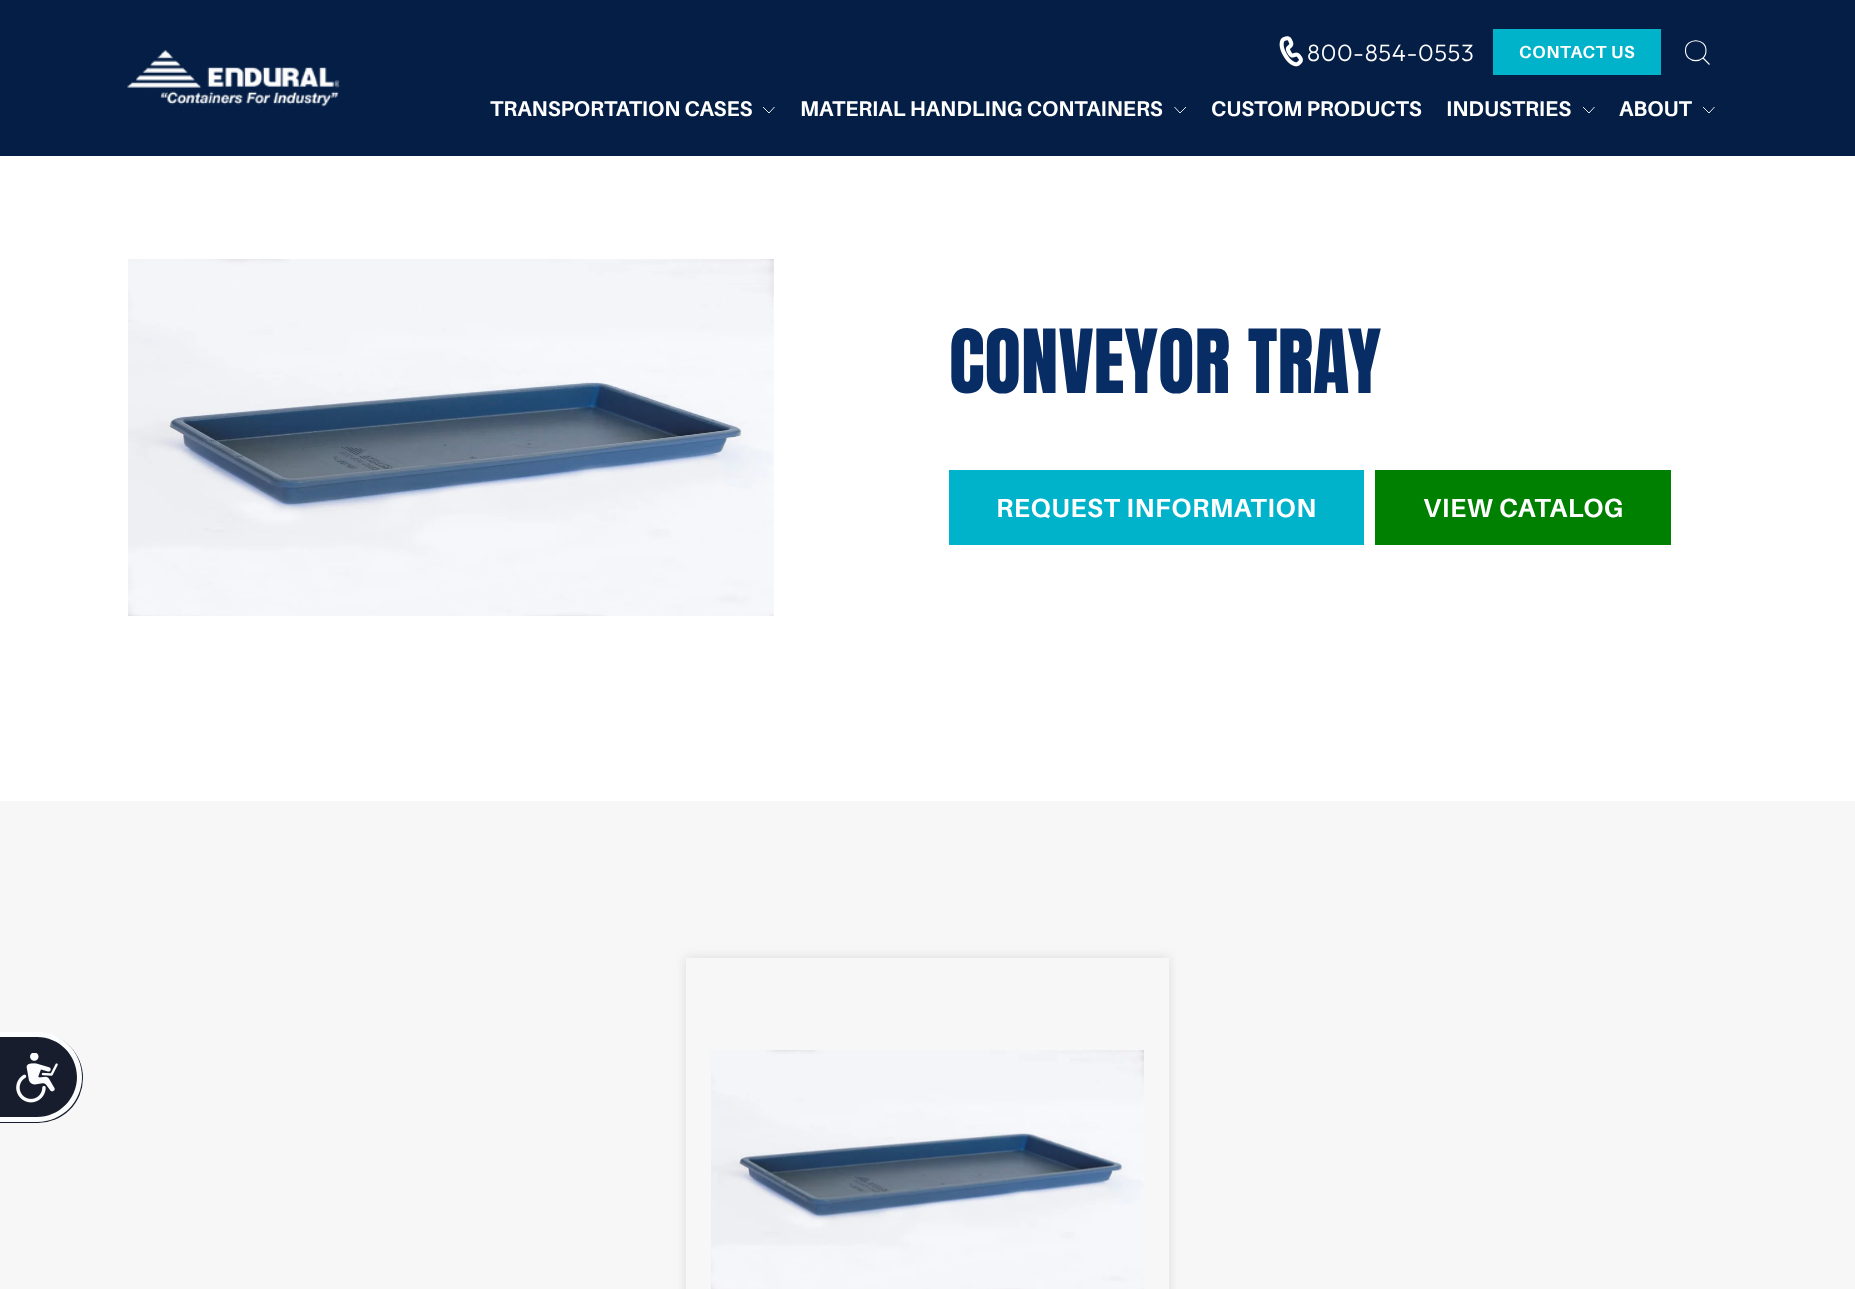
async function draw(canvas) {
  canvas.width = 1855;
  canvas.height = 1289;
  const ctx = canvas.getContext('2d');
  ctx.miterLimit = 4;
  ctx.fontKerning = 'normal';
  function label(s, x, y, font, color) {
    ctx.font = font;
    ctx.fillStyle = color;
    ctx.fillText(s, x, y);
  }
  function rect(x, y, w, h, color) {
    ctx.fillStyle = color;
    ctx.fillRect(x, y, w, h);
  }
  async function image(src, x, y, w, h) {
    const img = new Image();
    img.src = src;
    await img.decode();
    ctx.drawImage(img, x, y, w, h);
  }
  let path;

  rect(0, 0, 1855, 1289, '#fff');
  rect(0, 0, 1855, 156, '#041e45');
  await image('assets/img1.png', 127, 50, 213, 57);
  await image('assets/img2.png', 1279, 36, 24, 31);
  ctx.letterSpacing = '0.6px';
  label('800-854-0553', 1307, 61, '300 23.75px Outfit', '#fff');
  rect(1493, 29, 168, 46, '#00b2ca');
  label('CONTACT US', 1519, 58, 'bold 17.5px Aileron', '#fff');
  path = new Path2D('M1706 50.5C1706 64 1685.5 64 1685.5 50.5C1685.5 37.5 1706 37.5 1706 50.5ZM1709.5 64.5L1703 58');
  ctx.strokeStyle = '#fff';
  ctx.lineWidth = 1.1;
  ctx.stroke(path);
  ctx.letterSpacing = '0px';
  label('TRANSPORTATION CASES', 490, 116, 'bold 21.25px Aileron', '#fff');
  path = new Path2D('M763 107L769 113L774.5 107');
  ctx.lineWidth = 0.9;
  ctx.stroke(path);
  label('MATERIAL HANDLING CONTAINERS', 800, 116, 'bold 21.25px Aileron', '#fff');
  path = new Path2D('M1174.5 107L1180 113L1186 107');
  ctx.stroke(path);
  label('CUSTOM PRODUCTS', 1211, 116, 'bold 21.25px Aileron', '#fff');
  label('INDUSTRIES', 1446, 116, 'bold 21.25px Aileron', '#fff');
  path = new Path2D('M1583 107L1589 113L1594.5 107');
  ctx.stroke(path);
  label('ABOUT', 1619, 116, 'bold 21.25px Aileron', '#fff');
  path = new Path2D('M1703 107L1709 113L1714.5 107');
  ctx.stroke(path);
  await image('assets/img3.png', 128, 259, 646, 357);
  label('CONVEYOR TRAY', 949, 393, '75px Anton', '#082d65');
  rect(949, 470, 415, 75, '#00b2ca');
  ctx.letterSpacing = '0.6px';
  label('REQUEST INFORMATION', 996, 517, 'bold 26.25px Aileron', '#fff');
  rect(1375, 470, 296, 75, '#008000');
  label('VIEW CATALOG', 1423, 517, 'bold 26.25px Aileron', '#fff');
  rect(0, 801, 1855, 488, '#f7f7f7');
  ctx.fillStyle = '#95959547';
  ctx.filter = 'blur(6px)';
  ctx.beginPath();
  ctx.rect(686, 958, 483, 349);
  ctx.fill();
  ctx.filter = 'none';
  rect(686, 958, 483, 331, '#f7f7f7');
  await image('assets/img4.png', 711, 1050, 433, 239);
  ctx.fillStyle = '#171d2d';
  ctx.beginPath();
  ctx.roundRect(0, 1033, 83, 90, [0, 45, 45, 0]);
  ctx.fill();
  ctx.fillStyle = '#fcfdff';
  path = new Path2D('M0 1032H37C62 1032 82 1052 82 1077C82 1102 62 1122 37 1122H0ZM0 1037H37C59 1037 77 1055 77 1077C77 1099 59 1117 37 1117H0Z');
  ctx.fill(path, 'evenodd');
  await image('assets/img5.png', 16, 1053, 42, 50);
}

draw(document.querySelector('canvas'));
